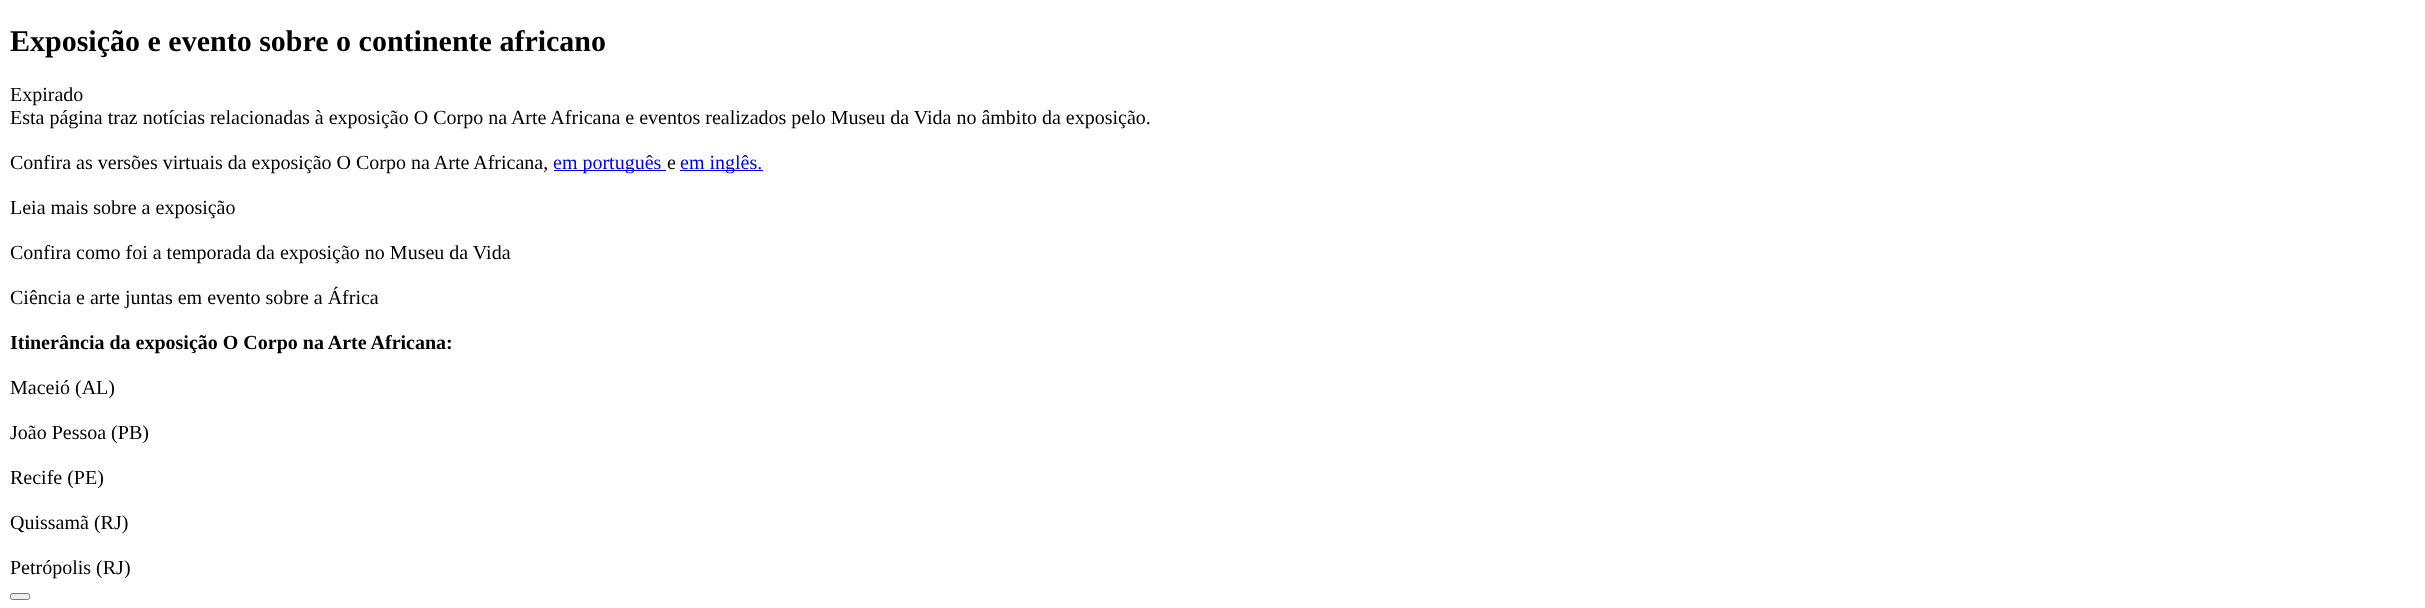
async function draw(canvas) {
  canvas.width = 2425;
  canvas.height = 608;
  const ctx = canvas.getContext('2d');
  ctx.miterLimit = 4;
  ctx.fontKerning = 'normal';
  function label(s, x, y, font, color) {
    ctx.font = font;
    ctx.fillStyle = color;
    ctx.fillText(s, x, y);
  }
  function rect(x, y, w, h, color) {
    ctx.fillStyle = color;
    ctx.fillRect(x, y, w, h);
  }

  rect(0, 0, 2425, 608, '#fff');
  label('Exposição e evento sobre o continente africano', 10, 51, 'bold 30px Liberation Serif', '#000');
  label('Expirado', 10, 101, '20px Liberation Serif', '#000');
  label('Esta página traz notícias relacionadas à exposição O Corpo na Arte Africana e eventos realizados pelo Museu da Vida no âmbito da exposição.', 10, 124, '20px Liberation Serif', '#000');
  label('Confira as versões virtuais da exposição O Corpo na Arte Africana,', 10, 169, '20px Liberation Serif', '#000');
  rect(554, 170, 112, 1, '#00e');
  label('em português', 553, 169, '20px Liberation Serif', '#00e');
  label('e', 667, 169, '20px Liberation Serif', '#000');
  rect(680, 170, 83, 1, '#00e');
  label('em inglês.', 680, 169, '20px Liberation Serif', '#00e');
  label('Leia mais sobre a exposição', 10, 214, '20px Liberation Serif', '#000');
  label('Confira como foi a temporada da exposição no Museu da Vida', 10, 259, '20px Liberation Serif', '#000');
  label('Ciência e arte juntas em evento sobre a África', 10, 304, '20px Liberation Serif', '#000');
  label('Itinerância da exposição O Corpo na Arte Africana:', 10, 349, 'bold 20px Liberation Serif', '#000');
  label('Maceió (AL)', 10, 394, '20px Liberation Serif', '#000');
  label('João Pessoa (PB)', 10, 439, '20px Liberation Serif', '#000');
  label('Recife (PE)', 10, 484, '20px Liberation Serif', '#000');
  label('Quissamã (RJ)', 10, 529, '20px Liberation Serif', '#000');
  label('Petrópolis (RJ)', 10, 574, '20px Liberation Serif', '#000');
  ctx.fillStyle = '#efefef';
  ctx.beginPath();
  ctx.roundRect(10.5, 593.5, 19, 6, 2);
  ctx.fill();
  ctx.strokeStyle = '#767676';
  ctx.stroke();
}

draw(document.querySelector('canvas'));
